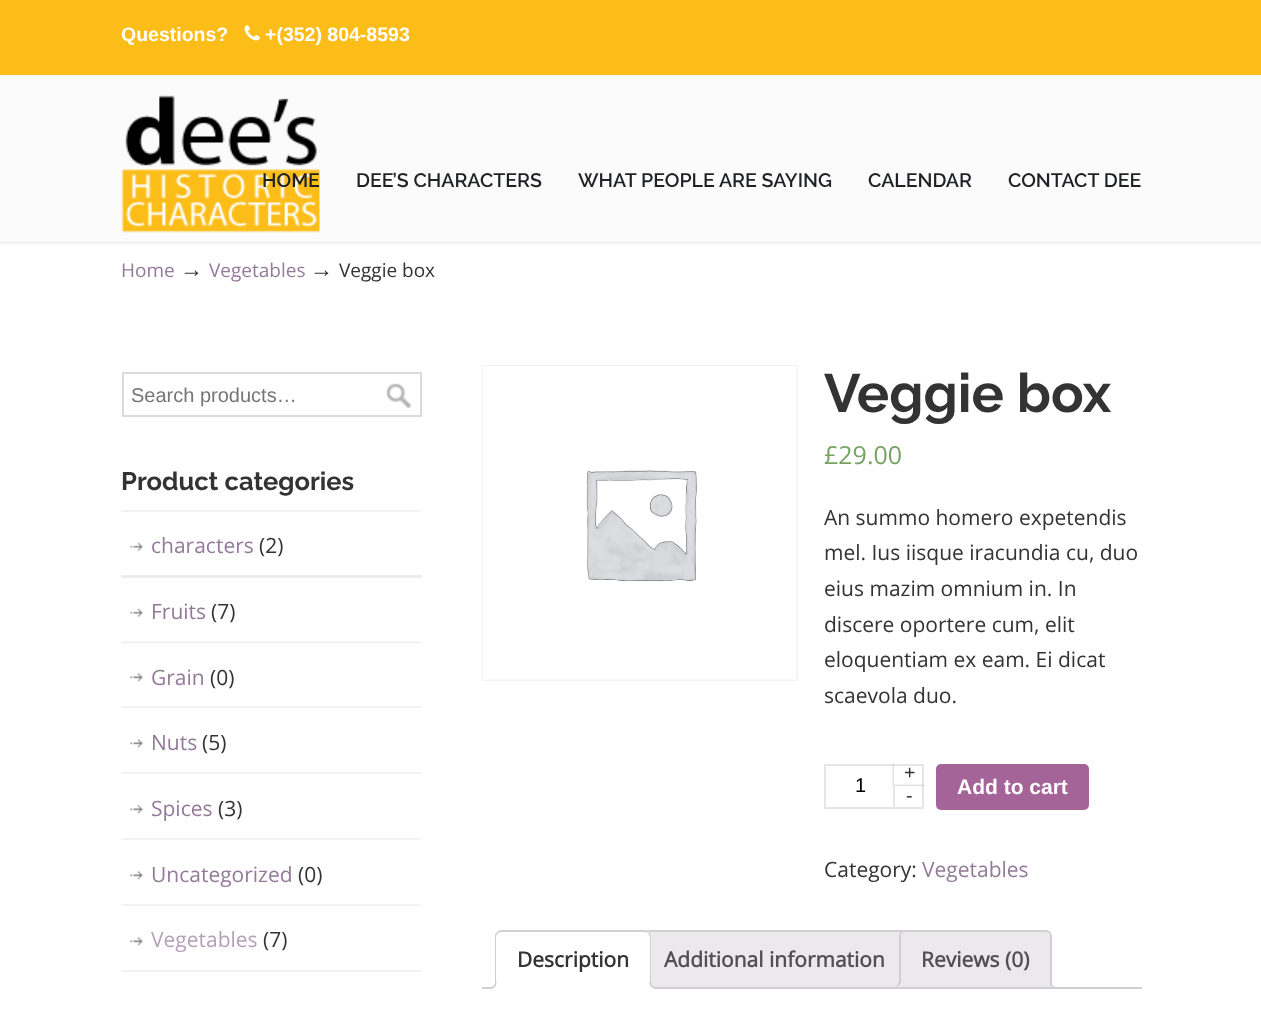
async function draw(canvas) {
  canvas.width = 1261;
  canvas.height = 1015;
  const ctx = canvas.getContext('2d');
  ctx.miterLimit = 4;
  ctx.fontKerning = 'normal';
  function label(s, x, y, font, color) {
    ctx.font = font;
    ctx.fillStyle = color;
    ctx.fillText(s, x, y);
  }
  function rect(x, y, w, h, color) {
    ctx.fillStyle = color;
    ctx.fillRect(x, y, w, h);
  }
  function roundedRect(x, y, w, h, r, color) {
    ctx.fillStyle = color;
    ctx.beginPath();
    ctx.roundRect(x, y, w, h, r);
    ctx.fill();
  }
  async function image(src, x, y, w, h) {
    const img = new Image();
    img.src = src;
    await img.decode();
    ctx.drawImage(img, x, y, w, h);
  }
  let path;

  rect(0, 0, 1261, 1015, '#fbfbfb');
  rect(0, 0, 1261, 75, '#fdbd18');
  label('Questions?', 121, 41, 'bold 19.5px Liberation Sans', '#fff');
  await image('assets/img1.png', 244, 25, 16, 16);
  label('+(352) 804-8593', 265, 41, 'bold 19.5px Liberation Sans', '#fff');
  await image('assets/img2.png', 121, 95, 199, 138);
  label('HOME', 262, 187, '600 19.5px Raleway', '#1f2124');
  label('DEE’S CHARACTERS', 356, 187, '600 19.5px Raleway', '#1f2124');
  label('WHAT PEOPLE ARE SAYING', 578, 187, '600 19.5px Raleway', '#1f2124');
  label('CALENDAR', 868, 187, '600 19.5px Raleway', '#1f2124');
  label('CONTACT DEE', 1008, 187, '600 19.5px Raleway', '#1f2124');
  rect(0, 240, 1261, 775, '#fff');
  rect(0, 241, 1261, 3, '#f2f2f2');
  label('Home', 121, 277, '19px Open Sans', '#947a99');
  label('→', 180, 277, '23px Liberation Serif', '#333');
  label('Vegetables', 209, 277, '19px Open Sans', '#947a99');
  label('→', 310, 277, '23px Liberation Serif', '#333');
  label('Veggie box', 339, 277, '19px Open Sans', '#333');
  ctx.strokeStyle = '#ddd9d9';
  ctx.lineWidth = 2;
  ctx.strokeRect(123, 373, 298, 43);
  label('Search products…', 131, 402, '20px Liberation Sans', '#757575');
  await image('assets/img3.png', 386, 383, 26, 25);
  await image('assets/img4.png', 121, 510, 301, 2);
  label('Product categories', 121, 490, 'bold 25.5px Raleway', '#333');
  rect(121, 575, 301, 3, '#ededed');
  await image('assets/img5.png', 130, 542, 13, 9);
  label('characters', 151, 553, '21px Open Sans', '#947a99');
  label('(2)', 259, 553, '21px Open Sans', '#333');
  await image('assets/img6.png', 121, 641, 301, 2);
  await image('assets/img5.png', 130, 608, 13, 9);
  label('Fruits', 151, 619, '21px Open Sans', '#947a99');
  label('(7)', 211, 619, '21px Open Sans', '#333');
  await image('assets/img7.png', 121, 706, 301, 2);
  await image('assets/img8.png', 130, 673, 13, 9);
  label('Grain', 151, 685, '21px Open Sans', '#947a99');
  label('(0)', 210, 685, '21px Open Sans', '#333');
  await image('assets/img7.png', 121, 772, 301, 2);
  await image('assets/img8.png', 130, 739, 13, 9);
  label('Nuts', 151, 750, '21px Open Sans', '#947a99');
  label('(5)', 202, 750, '21px Open Sans', '#333');
  await image('assets/img7.png', 121, 838, 301, 2);
  await image('assets/img8.png', 130, 805, 13, 9);
  label('Spices', 151, 816, '21px Open Sans', '#947a99');
  label('(3)', 218, 816, '21px Open Sans', '#333');
  await image('assets/img7.png', 121, 904, 301, 2);
  await image('assets/img8.png', 130, 871, 13, 9);
  label('Uncategorized', 151, 882, '21px Open Sans', '#947a99');
  label('(0)', 298, 882, '21px Open Sans', '#333');
  await image('assets/img9.png', 121, 970, 301, 2);
  await image('assets/img8.png', 130, 937, 13, 9);
  label('Vegetables', 151, 947, '21px Open Sans', '#b59fb9');
  label('(7)', 263, 947, '21px Open Sans', '#333');
  ctx.strokeStyle = '#f2f2f2';
  ctx.strokeRect(483, 366, 314, 314);
  await image('assets/img10.png', 483, 366, 314, 314);
  label('Veggie box', 824, 412, 'bold 54px Raleway', '#333');
  label('£29.00', 824, 464, '25px Open Sans', '#77a464');
  label('An summo homero expetendis', 824, 525, '21px Open Sans', '#333');
  label('mel. Ius iisque iracundia cu, duo', 824, 560, '21px Open Sans', '#333');
  label('eius mazim omnium in. In', 824, 596, '21px Open Sans', '#333');
  label('discere oportere cum, elit', 824, 632, '21px Open Sans', '#333');
  label('eloquentiam ex eam. Ei dicat', 824, 667, '21px Open Sans', '#333');
  label('scaevola duo.', 824, 703, '21px Open Sans', '#333');
  ctx.strokeStyle = '#e6e6e6';
  ctx.strokeRect(825, 765, 98, 43);
  label('1', 855, 792, '20px Liberation Sans', '#000');
  ctx.fillStyle = '#0000001a';
  path = new Path2D('M924 786H892.5L894 784.5H924Z');
  ctx.fill(path);
  path = new Path2D('M892.5 786V763.5H894V784.5Z');
  ctx.fill(path);
  label('+', 904, 779, '19.5px Liberation Sans', '#333');
  rect(893, 786, 2, 21, '#e6e6e6');
  label('-', 906, 802, '19.5px Liberation Sans', '#333');
  roundedRect(936, 764, 153, 46, 5, '#a46497');
  label('Add to cart', 957, 794, 'bold 21px Liberation Sans', '#fff');
  label('Category:', 824, 877, '21px Open Sans', '#333');
  label('Vegetables', 922, 877, '21px Open Sans', '#947a99');
  ctx.fillStyle = '#ebe9eb';
  ctx.beginPath();
  ctx.roundRect(643, 931, 264, 57, [5, 5, 0, 0]);
  ctx.fill();
  ctx.strokeStyle = '#d3ced2';
  ctx.stroke();
  ctx.beginPath();
  ctx.roundRect(900, 931, 151, 57, [5, 5, 0, 0]);
  ctx.fill();
  ctx.stroke();
  ctx.save();
  ctx.beginPath();
  ctx.rect(482, 930, 660, 59);
  ctx.clip();
  path = new Path2D('M896 988V992C901.5 992 903 989 903 984H900C899.5 986 898 987.5 896 988Z');
  ctx.fill(path);
  ctx.restore();
  ctx.fillStyle = '#d3ced2';
  path = new Path2D('M892.5 981H900C900 986.5 898 988.5 892.5 988.5ZM892.5 981H898.5C898.5 985.5 897 987 892.5 987Z');
  ctx.fill(path, 'evenodd');
  ctx.save();
  ctx.beginPath();
  ctx.rect(482, 930, 660, 59);
  ctx.clip();
  ctx.fillStyle = '#ebe9eb';
  path = new Path2D('M1047 984C1047 990 1049 992 1055 992V988.5C1052.5 988 1051 986.5 1050 984Z');
  ctx.fill(path);
  ctx.restore();
  path = new Path2D('M1050 981H1057.5V988.5C1053.5 988.5 1050 987 1050 982.5ZM1051.5 981H1057.5V987C1054.5 987 1051.5 986 1051.5 982.5Z');
  ctx.fill(path, 'evenodd');
  rect(482, 987, 660, 2, '#d3ced2');
  ctx.fillStyle = '#fff';
  ctx.beginPath();
  ctx.roundRect(495, 930, 156, 59, [6, 6, 0, 0]);
  ctx.fill();
  ctx.fillStyle = '#d3ced2';
  path = new Path2D('M501 930C500 930 498 931 497 932L498 933L501 932H645L648 933L649 932C648 931 646 930 645 930Z');
  ctx.fill(path);
  path = new Path2D('M651 988V936C651 934 650 933 649 932L648 933L650 936V987Z');
  ctx.fill(path);
  path = new Path2D('M495 936V988H496V987V936L498 933L497 932C496 933 495 934 495 936Z');
  ctx.fill(path);
  label('Description', 517, 967, 'bold 21px Open Sans', '#333');
  ctx.save();
  ctx.beginPath();
  ctx.rect(482, 930, 660, 59);
  ctx.clip();
  ctx.fillStyle = '#fff';
  path = new Path2D('M492 988.5V992C498 992 500 990 500 984H496.5C496 986 494 988 492 988.5Z');
  ctx.fill(path);
  ctx.restore();
  ctx.fillStyle = '#d3ced2';
  path = new Path2D('M489 981H496.5C496.5 986.5 494.5 988.5 489 988.5ZM489 981H495C495 985.5 493.5 987 489 987Z');
  ctx.fill(path, 'evenodd');
  ctx.save();
  ctx.beginPath();
  ctx.rect(482, 930, 660, 59);
  ctx.clip();
  ctx.fillStyle = '#fff';
  path = new Path2D('M647 984C647 989 648.5 992 654 992V988.5C652 988 650 986 649.5 984Z');
  ctx.fill(path);
  ctx.restore();
  path = new Path2D('M649.5 981H657V988.5C653 988.5 649.5 987 649.5 982.5ZM651 981H657V987C654 987 651 986 651 982.5Z');
  ctx.fill(path, 'evenodd');
  label('Additional information', 664, 967, 'bold 21px Open Sans', '#515151');
  label('Reviews (0)', 921, 967, 'bold 21px Open Sans', '#515151');
}

draw(document.querySelector('canvas'));
